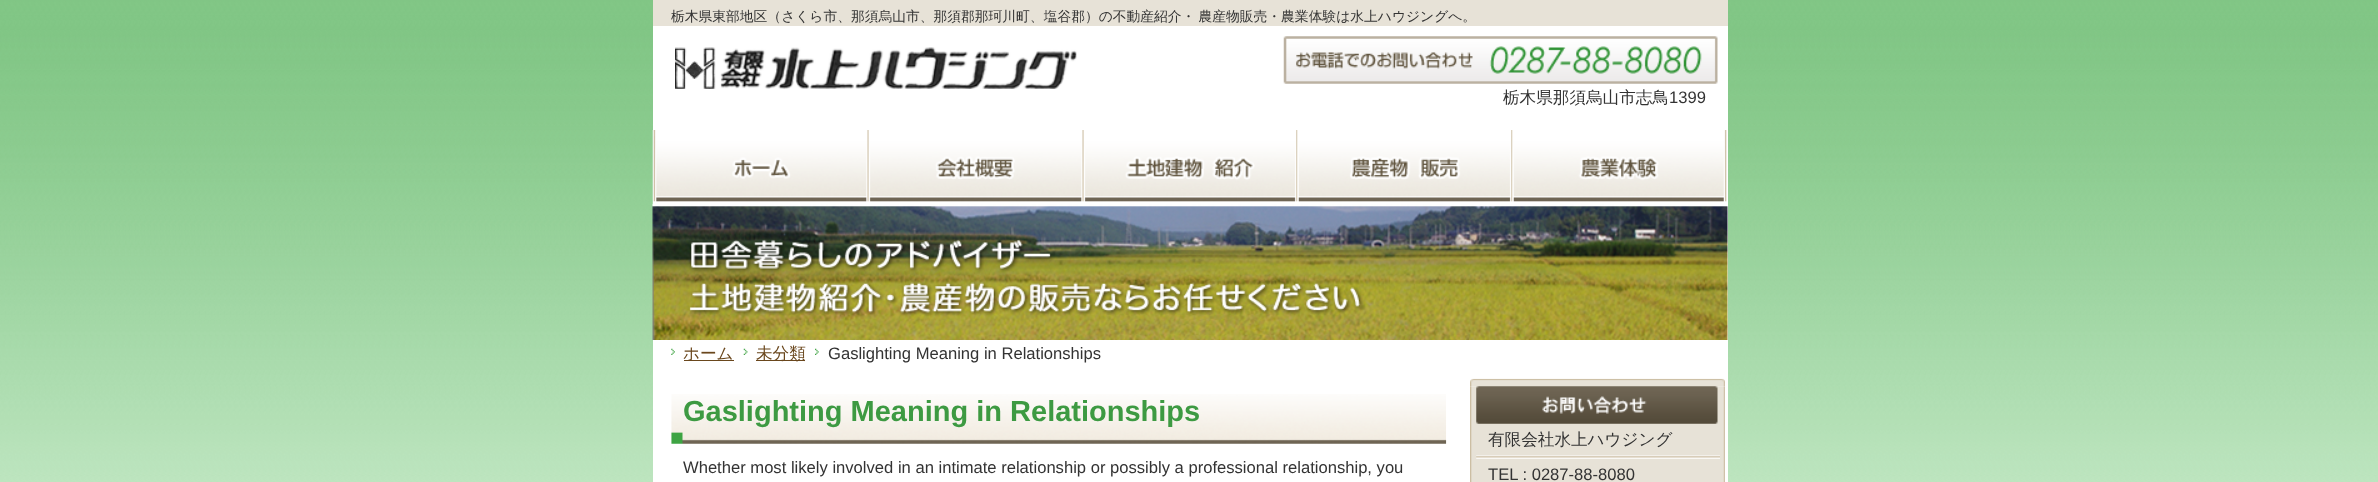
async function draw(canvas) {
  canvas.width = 2378;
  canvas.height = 482;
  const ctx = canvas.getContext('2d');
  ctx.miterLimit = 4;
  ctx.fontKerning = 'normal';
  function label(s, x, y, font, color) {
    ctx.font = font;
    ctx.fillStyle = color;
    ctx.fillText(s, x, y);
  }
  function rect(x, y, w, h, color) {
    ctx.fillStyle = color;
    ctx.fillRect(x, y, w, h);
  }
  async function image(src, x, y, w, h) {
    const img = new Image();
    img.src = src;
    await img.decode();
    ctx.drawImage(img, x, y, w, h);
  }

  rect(0, 0, 2378, 482, '#fff');
  await image('assets/img1.png', 0, 0, 2378, 482);
  rect(653, 26, 1075, 456, '#fff');
  rect(653, 0, 1075, 26, '#e7e2d7');
  ctx.wordSpacing = '-1px';
  label('栃木県東部地区（さくら市、那須烏山市、那須郡那珂川町、塩谷郡）の不動産紹介・ 農産物販売・農業体験は水上ハウジングへ。', 671, 21, '500 13.78px WenQuanYi Zen Hei', '#333');
  await image('assets/img2.png', 675, 47, 402, 42);
  await image('assets/img3.png', 1283, 36, 435, 48);
  ctx.wordSpacing = '0px';
  label('栃木県那須烏山市志鳥', 1503, 103, '500 16.6px WenQuanYi Zen Hei', '#333');
  label('1399', 1669, 103, '16.6px Liberation Sans', '#333');
  await image('assets/img9.png', 652, 203, 1076, 137);
  await image('assets/img4.png', 652, 130, 217, 74);
  await image('assets/img5.png', 868, 130, 216, 72);
  await image('assets/img6.png', 1083, 130, 215, 72);
  await image('assets/img7.png', 1297, 130, 216, 72);
  await image('assets/img8.png', 1512, 130, 215, 72);
  await image('assets/img10.png', 671, 348, 4, 7);
  rect(684, 360, 50, 1, '#6a471d');
  label('ホーム', 683, 359, '500 16.6px WenQuanYi Zen Hei', '#6a471d');
  await image('assets/img11.png', 743, 348, 5, 7);
  rect(756, 360, 49, 1, '#6a471d');
  label('未分類', 756, 359, '500 16.6px WenQuanYi Zen Hei', '#6a471d');
  await image('assets/img12.png', 815, 348, 4, 7);
  label('Gaslighting Meaning in Relationships', 828, 359, '16.6px Liberation Sans', '#333');
  await image('assets/img13.png', 671, 394, 776, 50);
  label('Gaslighting Meaning in Relationships', 683, 421, 'bold 29px Liberation Sans', '#3d9a42');
  label('Whether most likely involved in an intimate relationship or possibly a professional relationship, you', 683, 473, '16.6px Liberation Sans', '#333');
  await image('assets/img14.png', 1470, 378, 255, 9);
  await image('assets/img15.png', 1470, 386, 255, 96);
  await image('assets/img16.png', 1476, 386, 242, 38);
  label('有限会社水上ハウジング', 1488, 445, '500 16.6px WenQuanYi Zen Hei', '#333');
  await image('assets/img17.png', 1476, 455, 244, 4);
  label('TEL : 0287-88-8080', 1488, 480, '16.6px Liberation Sans', '#333');
}

draw(document.querySelector('canvas'));
